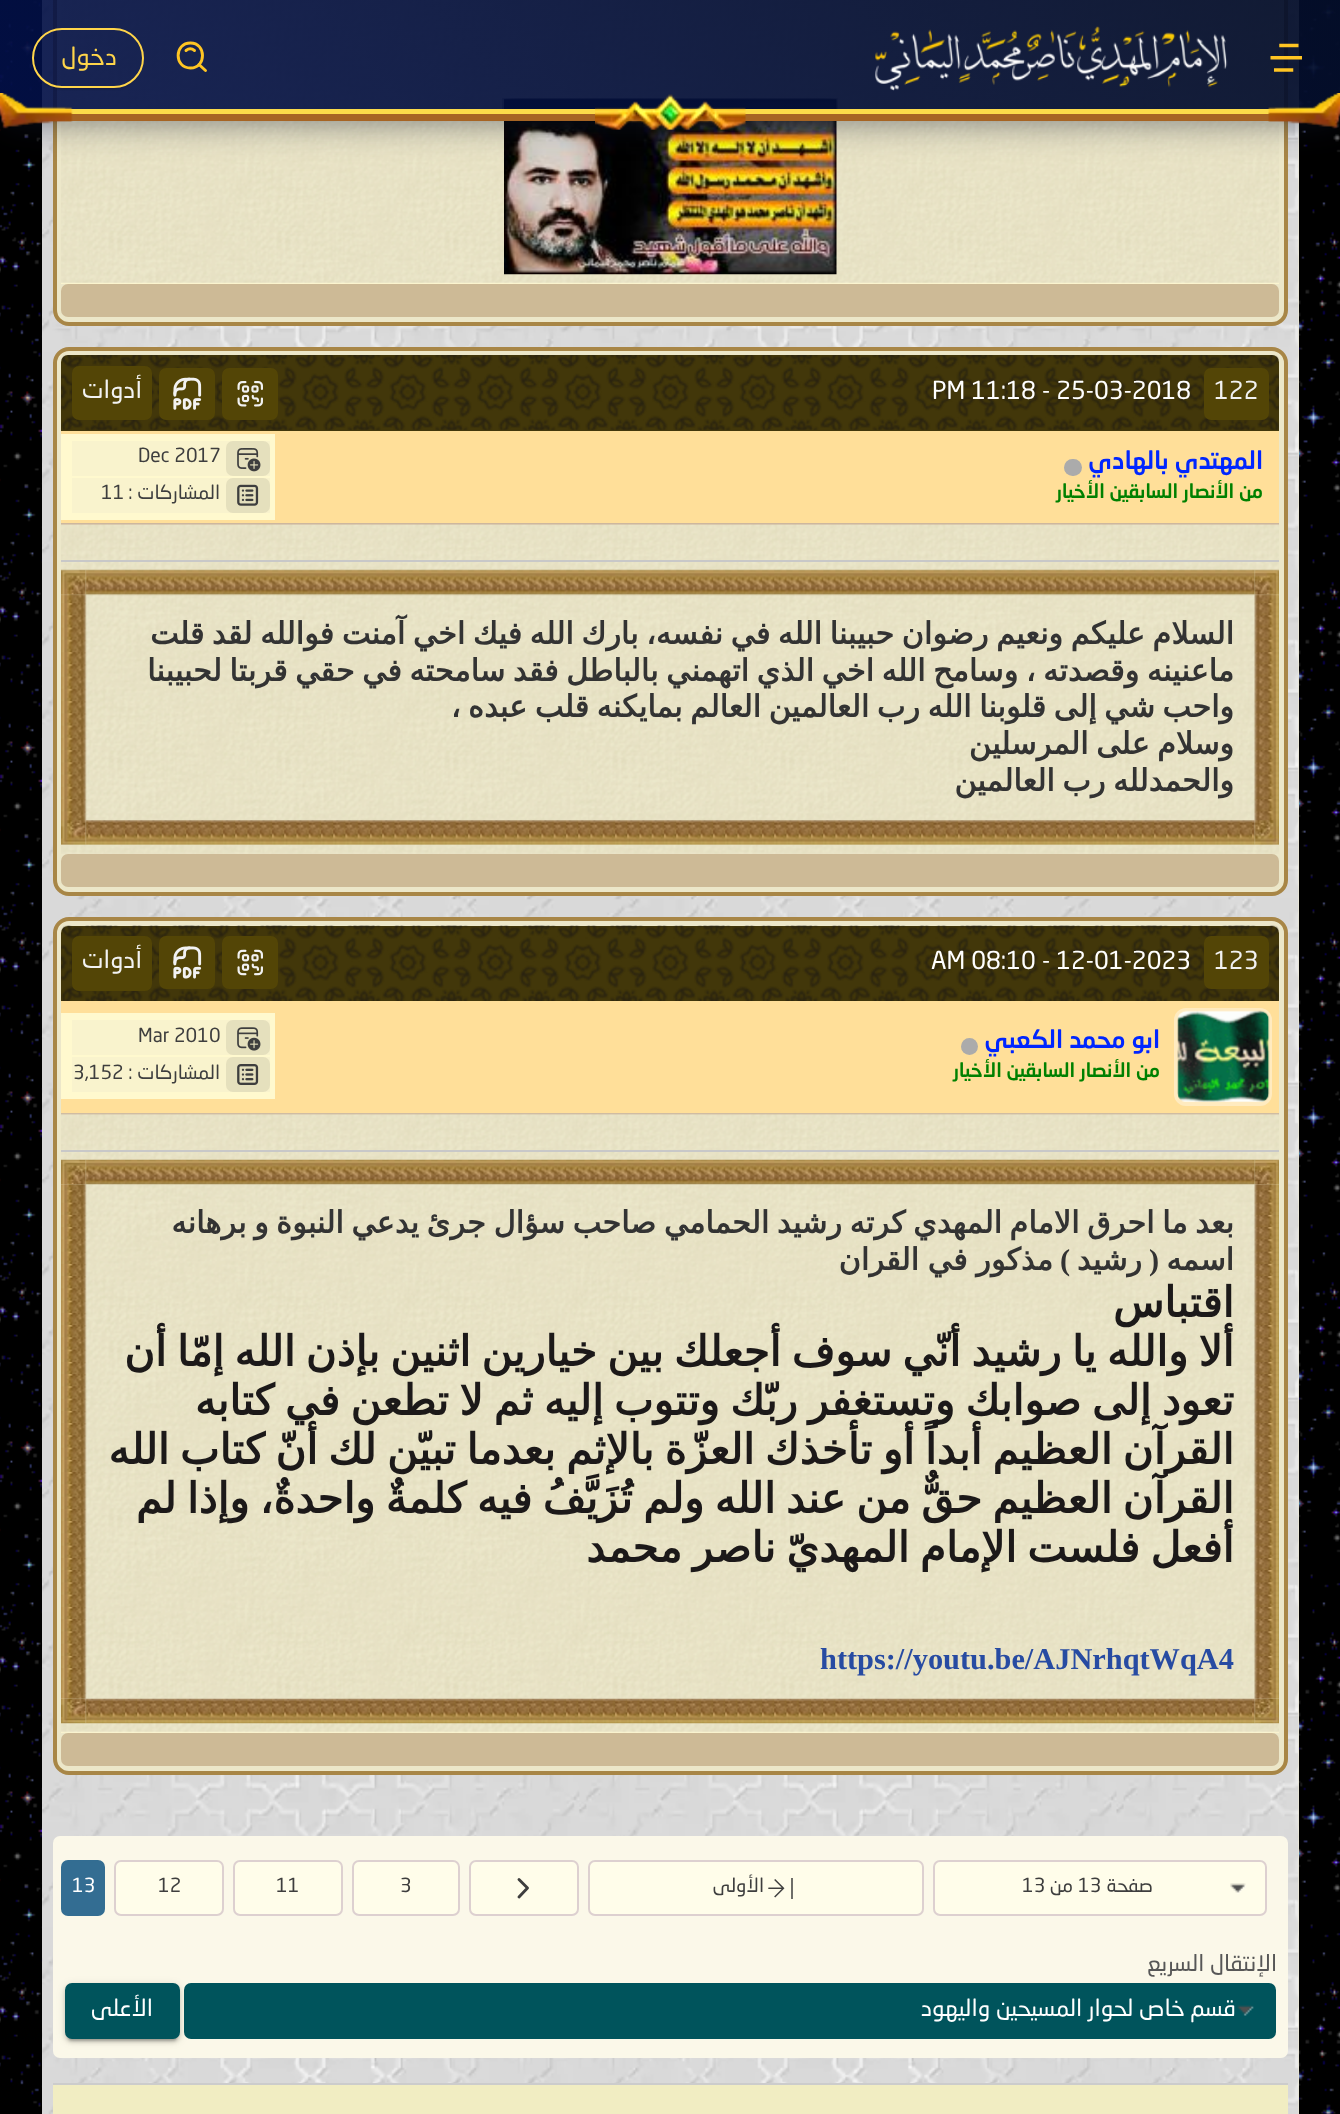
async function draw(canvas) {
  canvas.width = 1340;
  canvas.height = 2114;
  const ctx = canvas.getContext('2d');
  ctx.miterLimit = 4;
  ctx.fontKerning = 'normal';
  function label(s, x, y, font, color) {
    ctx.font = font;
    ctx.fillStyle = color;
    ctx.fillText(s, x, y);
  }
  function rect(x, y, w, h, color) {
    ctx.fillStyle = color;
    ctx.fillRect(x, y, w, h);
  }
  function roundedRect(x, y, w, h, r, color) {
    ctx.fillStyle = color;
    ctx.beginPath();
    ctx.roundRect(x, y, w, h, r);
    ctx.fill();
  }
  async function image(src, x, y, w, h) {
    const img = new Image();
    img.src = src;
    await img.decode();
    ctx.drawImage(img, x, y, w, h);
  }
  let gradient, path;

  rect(0, 0, 1340, 2114, '#fff');
  await image('assets/img1.png', 0, 0, 1340, 2114);
  rect(1298, 0, 1, 2114, '#eee8cd');
  await image('assets/img7.png', 42, 0, 1257, 2114);
  ctx.fillStyle = '#ece7c9';
  ctx.beginPath();
  ctx.roundRect(55, -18, 1231, 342, 14);
  ctx.fill();
  ctx.strokeStyle = '#a88646';
  ctx.lineWidth = 4;
  ctx.stroke();
  rect(61, 282, 1218, 2, '#fff9d2');
  await image('assets/img8.png', 61, 0, 1218, 284);
  await image('assets/img9.png', 502, 98, 336, 177);
  ctx.save();
  path = new Path2D('M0 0H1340V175H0ZM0 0H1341V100C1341 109 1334 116 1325 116H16C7 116 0 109 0 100Z');
  ctx.clip(path, 'evenodd');
  ctx.fillStyle = '#151c368a';
  ctx.filter = 'blur(17.5px)';
  ctx.beginPath();
  ctx.roundRect(2, 5, 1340, 116, 16);
  ctx.fill();
  ctx.filter = 'none';
  ctx.restore();
  gradient = ctx.createLinearGradient(248, 412, 1092, -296);
  gradient.addColorStop(0, '#021049e6');
  gradient.addColorStop(1, '#040e2af0');
  ctx.fillStyle = gradient;
  path = new Path2D('M0 0H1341V100C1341 109 1334 116 1325 116H16C7 116 0 109 0 100Z');
  ctx.fill(path);
  await image('assets/img2.png', 1270, 43, 32, 29);
  await image('assets/img3.png', 875, 26, 353, 65);
  path = new Path2D('M190.5 68C206.5 68 206.5 43 190.5 43C174 43 174 68 190.5 68Z');
  ctx.strokeStyle = '#ffc523';
  ctx.lineWidth = 2.9;
  ctx.lineJoin = 'round';
  ctx.stroke(path);
  path = new Path2D('M194.5 50.5C192 48.5 188.5 48.5 186 50.5M199 64.5L205.5 70.5');
  ctx.lineCap = 'round';
  ctx.stroke(path);
  ctx.save();
  path = new Path2D('M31 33H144V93H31ZM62 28H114C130.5 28 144 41.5 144 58C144 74.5 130.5 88 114 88H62C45.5 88 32 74.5 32 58C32 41.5 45.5 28 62 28Z');
  ctx.clip(path, 'evenodd');
  ctx.fillStyle = '#00000033';
  ctx.filter = 'blur(1px)';
  ctx.beginPath();
  ctx.roundRect(35, 37, 105, 52, 26);
  ctx.fill();
  ctx.filter = 'none';
  ctx.restore();
  ctx.beginPath();
  ctx.roundRect(33, 29, 110, 58, 29);
  ctx.strokeStyle = '#ffd54a';
  ctx.lineWidth = 2;
  ctx.lineJoin = 'miter';
  ctx.stroke();
  ctx.letterSpacing = '0.5px';
  ctx.direction = 'rtl';
  label('دخول', 117, 65, '24.5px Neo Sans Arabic', '#ffd54a');
  rect(40, 114, 1260, 7, '#a66423');
  rect(26, 109, 1289, 5, '#fbdb49');
  await image('assets/img4.png', 1268, 93, 72, 36);
  await image('assets/img5.png', 595, 94, 151, 36);
  await image('assets/img6.png', 0, 93, 73, 36);
  roundedRect(61, 284, 1218, 33, 7, '#cdba96');
  ctx.fillStyle = '#ece7c9';
  ctx.beginPath();
  ctx.roundRect(55, 349, 1231, 545, 14);
  ctx.fill();
  ctx.strokeStyle = '#a88646';
  ctx.lineWidth = 4;
  ctx.stroke();
  ctx.fillStyle = '#42370a';
  ctx.beginPath();
  ctx.roundRect(61, 355, 1218, 76, [7, 7, 0, 0]);
  ctx.fill();
  await image('assets/img10.png', 61, 355, 1218, 75);
  roundedRect(1204, 368, 65, 52, 7, '#534506');
  ctx.letterSpacing = '0px';
  ctx.direction = 'ltr';
  label('122', 1214, 399, '24.5px Neo Sans Arabic', '#f2f2f2');
  label('- 25-03-2018', 1042, 399, '24.5px Neo Sans Arabic', '#fff');
  label('PM 11:18', 932, 399, '24.5px Neo Sans Arabic', '#fff');
  roundedRect(222, 368, 56, 52, 7, '#534506');
  await image('assets/img11.png', 237, 381, 26, 26);
  roundedRect(159, 368, 56, 52, 7, '#534506');
  await image('assets/img12.png', 173, 377, 29, 33);
  roundedRect(72, 366, 80, 54, 7, '#534506');
  ctx.direction = 'rtl';
  label('أدوات', 142, 398, '24.5px Neo Sans Arabic', '#f2f2f2');
  rect(61, 431, 1218, 92, '#ffdf99');
  rect(61, 523, 1218, 2, '#cdb79e');
  label('المهتدي بالهادي', 1263, 469, '500 24.5px Neo Sans Arabic', '#0026ff');
  roundedRect(1064, 459, 18, 17, 8.5, '#ababab');
  label('من الأنصار السابقين الأخيار', 1263, 498, '500 19.25px Neo Sans Arabic', '#008000');
  rect(61, 434, 214, 86, '#fff9ce');
  rect(72, 441, 198, 35, '#f9f3cd');
  roundedRect(226, 441, 44, 35, 7, '#e5e0bd');
  await image('assets/img13.png', 237, 448, 24, 24);
  ctx.direction = 'ltr';
  label('Dec 2017', 138, 462, '19.25px Neo Sans Arabic', '#3e3e3e');
  rect(72, 478, 198, 35, '#f9f3cd');
  roundedRect(226, 478, 44, 35, 7, '#e5e0bd');
  await image('assets/img14.png', 237, 484, 22, 22);
  ctx.direction = 'rtl';
  label('المشاركات :', 220, 499, '19.25px Neo Sans Arabic', '#3e3e3e');
  ctx.direction = 'ltr';
  label('11', 101, 499, '19.25px Neo Sans Arabic', '#3e3e3e');
  await image('assets/img15.png', 61, 524, 1218, 330);
  rect(61, 560, 1218, 2, '#c8c8c8');
  await image('assets/img16.png', 61, 569, 1218, 276);
  ctx.wordSpacing = '-2.1px';
  ctx.direction = 'rtl';
  label('السلام عليكم ونعيم رضوان حبيبنا الله في نفسه، بارك الله فيك اخي آمنت فوالله لقد قلت', 1234, 644, 'bold 30.35px DejaVu Sans', '#333');
  label('ماعنينه وقصدته ، وسامح الله اخي الذي اتهمني بالباطل فقد سامحته في حقي قربتا لحبيبنا', 1234, 681, 'bold 30.35px DejaVu Sans', '#333');
  label('واحب شي إلى قلوبنا الله رب العالمين العالم بمايكنه قلب عبده ،', 1234, 717, 'bold 30.35px DejaVu Sans', '#333');
  label('وسلام على المرسلين', 1234, 754, 'bold 30.35px DejaVu Sans', '#333');
  label('والحمدلله رب العالمين', 1234, 791, 'bold 30.35px DejaVu Sans', '#333');
  roundedRect(61, 854, 1218, 33, 7, '#cdba96');
  ctx.fillStyle = '#ece7c9';
  ctx.beginPath();
  ctx.roundRect(55, 919, 1231, 854, 14);
  ctx.fill();
  ctx.stroke();
  ctx.fillStyle = '#42370a';
  ctx.beginPath();
  ctx.roundRect(61, 926, 1218, 75, [7, 7, 0, 0]);
  ctx.fill();
  await image('assets/img17.png', 61, 925, 1218, 76);
  roundedRect(1204, 936, 65, 53, 7, '#534506');
  ctx.wordSpacing = '0px';
  ctx.direction = 'ltr';
  label('123', 1214, 969, '24.5px Neo Sans Arabic', '#f2f2f2');
  label('- 12-01-2023', 1042, 969, '24.5px Neo Sans Arabic', '#fff');
  label('AM 08:10', 931, 969, '24.5px Neo Sans Arabic', '#fff');
  roundedRect(222, 936, 56, 53, 7, '#534506');
  await image('assets/img18.png', 237, 949, 26, 27);
  roundedRect(159, 936, 56, 53, 7, '#534506');
  await image('assets/img19.png', 173, 946, 29, 33);
  roundedRect(72, 936, 80, 55, 7, '#534506');
  ctx.direction = 'rtl';
  label('أدوات', 142, 968, '24.5px Neo Sans Arabic', '#f2f2f2');
  rect(61, 1001, 1218, 112, '#ffdf99');
  rect(61, 1113, 1218, 2, '#cdb79e');
  roundedRect(1174, 1008, 98, 98, 12, '#ffe6af');
  ctx.beginPath();
  ctx.roundRect(1176, 1010, 94, 94, 10);
  ctx.strokeStyle = '#ffffff38';
  ctx.stroke();
  await image('assets/img20.png', 1177, 1010, 93, 92);
  label('ابو محمد الكعبي', 1160, 1048, '500 24.5px Neo Sans Arabic', '#0026ff');
  ctx.fillStyle = '#ababab';
  ctx.beginPath();
  ctx.arc(969.5, 1046.5, 8.5, 0, 2 * Math.PI);
  ctx.fill();
  label('من الأنصار السابقين الأخيار', 1160, 1077, '500 19.25px Neo Sans Arabic', '#008000');
  rect(61, 1013, 214, 86, '#fff9ce');
  rect(72, 1020, 198, 35, '#f9f3cd');
  roundedRect(226, 1020, 44, 35, 7, '#e5e0bd');
  await image('assets/img21.png', 237, 1027, 24, 24);
  ctx.direction = 'ltr';
  label('Mar 2010', 138, 1042, '19.25px Neo Sans Arabic', '#3e3e3e');
  rect(72, 1057, 198, 35, '#f9f3cd');
  roundedRect(226, 1057, 44, 35, 7, '#e5e0bd');
  await image('assets/img22.png', 237, 1064, 22, 21);
  ctx.direction = 'rtl';
  label('المشاركات :', 220, 1079, '19.25px Neo Sans Arabic', '#3e3e3e');
  ctx.direction = 'ltr';
  label('3,152', 73, 1079, '19.25px Neo Sans Arabic', '#3e3e3e');
  rect(61, 1731, 1218, 2, '#fff9d2');
  await image('assets/img23.png', 61, 1113, 1218, 620);
  rect(61, 1150, 1218, 2, '#c8c8c8');
  await image('assets/img24.png', 61, 1159, 1218, 565);
  ctx.wordSpacing = '-2.1px';
  ctx.direction = 'rtl';
  label('بعد ما احرق الامام المهدي كرته رشيد الحمامي صاحب سؤال جرئ', 1234, 1233, 'bold 30.35px DejaVu Sans', '#333');
  label('يدعي النبوة و برهانه', 419, 1233, 'bold 30.35px DejaVu Sans', '#333');
  ctx.wordSpacing = '0px';
  label('اسمه', 1234, 1270, 'bold 30.35px DejaVu Sans', '#333');
  label('(', 1159, 1270, 'bold 30.35px Liberation Serif', '#333');
  label('رشيد', 1142, 1270, 'bold 30.35px DejaVu Sans', '#333');
  label(')', 1070, 1270, 'bold 30.35px Liberation Serif', '#333');
  ctx.wordSpacing = '-1px';
  label('مذكور في القران', 1053, 1270, 'bold 30.35px DejaVu Sans', '#333');
  ctx.wordSpacing = '0px';
  label('اقتباس', 1234, 1317, 'bold 42px DejaVu Sans', '#1c1919');
  ctx.wordSpacing = '-2.9px';
  label('ألا والله يا رشيد أنّي سوف أجعلك بين خيارين اثنين بإذن الله إمّا أن', 1234, 1366, 'bold 42px DejaVu Sans', '#1c1919');
  label('تعود إلى صوابك وتستغفر ربّك وتتوب إليه ثم لا تطعن في كتابه', 1234, 1415, 'bold 42px DejaVu Sans', '#1c1919');
  label('القرآن العظيم أبداً أو تأخذك العزّة بالإثم بعدما تبيّن لك أنّ كتاب الله', 1234, 1464, 'bold 42px DejaVu Sans', '#1c1919');
  label('القرآن العظيم حقٌّ من عند الله ولم تُزَيَّفُ فيه كلمةٌ واحدةٌ، وإذا لم', 1234, 1513, 'bold 42px DejaVu Sans', '#1c1919');
  label('أفعل فلست الإمام المهديّ ناصر محمد', 1234, 1562, 'bold 42px DejaVu Sans', '#1c1919');
  ctx.wordSpacing = '0px';
  ctx.direction = 'ltr';
  label('https://youtu.be/AJNrhqtWqA4', 820, 1669, 'bold 30.35px Liberation Serif', '#274ba2');
  roundedRect(61, 1733, 1218, 33, 7, '#cdba96');
  roundedRect(53, 1836, 1235, 222, 7, '#fbf8e9');
  ctx.fillStyle = '#fffdea';
  ctx.beginPath();
  ctx.roundRect(934, 1861, 332, 54, 6);
  ctx.fill();
  ctx.strokeStyle = '#ddd0d0';
  ctx.lineWidth = 2;
  ctx.stroke();
  await image('assets/img25.png', 1230, 1883, 16, 11);
  ctx.direction = 'rtl';
  label('صفحة', 1153, 1892, '19.25px Neo Sans Arabic', '#3e3e3e');
  ctx.direction = 'ltr';
  label('13', 1078, 1892, '19.25px Neo Sans Arabic', '#3e3e3e');
  ctx.direction = 'rtl';
  label('من', 1073, 1892, '19.25px Neo Sans Arabic', '#3e3e3e');
  ctx.direction = 'ltr';
  label('13', 1022, 1892, '19.25px Neo Sans Arabic', '#3e3e3e');
  ctx.fillStyle = '#fffdea';
  ctx.beginPath();
  ctx.roundRect(589, 1861, 334, 54, 6);
  ctx.fill();
  ctx.stroke();
  await image('assets/img26.png', 768, 1878, 25, 21);
  ctx.direction = 'rtl';
  label('الأولى', 764, 1892, '19.25px Neo Sans Arabic', '#3e3e3e');
  ctx.fillStyle = '#fffdea';
  ctx.beginPath();
  ctx.roundRect(470, 1861, 108, 54, 6);
  ctx.fill();
  ctx.stroke();
  path = new Path2D('M519 1897L527.5 1888L519 1879.5');
  ctx.strokeStyle = '#3e3e3e';
  ctx.lineWidth = 2.9;
  ctx.lineJoin = 'round';
  ctx.stroke(path);
  ctx.beginPath();
  ctx.roundRect(353, 1861, 106, 54, 6);
  ctx.fill();
  ctx.strokeStyle = '#ddd0d0';
  ctx.lineWidth = 2;
  ctx.lineJoin = 'miter';
  ctx.stroke();
  ctx.direction = 'ltr';
  label('3', 400, 1892, '19.25px Neo Sans Arabic', '#3e3e3e');
  ctx.fillStyle = '#fffdea';
  ctx.beginPath();
  ctx.roundRect(234, 1861, 108, 54, 6);
  ctx.fill();
  ctx.stroke();
  label('11', 276, 1892, '19.25px Neo Sans Arabic', '#3e3e3e');
  ctx.fillStyle = '#fffdea';
  ctx.beginPath();
  ctx.roundRect(115, 1861, 108, 54, 6);
  ctx.fill();
  ctx.stroke();
  label('12', 158, 1892, '19.25px Neo Sans Arabic', '#3e3e3e');
  roundedRect(61, 1860, 44, 56, 7, '#336d92');
  label('13', 72, 1892, '19.25px Neo Sans Arabic', '#fff');
  ctx.direction = 'rtl';
  label('الإنتقال السريع', 1277, 1971, '22.75px Neo Sans Arabic', '#575757');
  roundedRect(184, 1983, 1092, 56, 7, '#00545c');
  await image('assets/img27.png', 1237, 2005, 17, 11);
  label('قسم خاص لحوار المسيحين واليهود', 1236, 2016, '23.3px Neo Sans Arabic', '#fff');
  ctx.fillStyle = '#0000001f';
  ctx.filter = 'blur(4.5px)';
  ctx.beginPath();
  ctx.roundRect(65, 1985, 115, 56, 7);
  ctx.fill();
  ctx.filter = 'none';
  ctx.fillStyle = '#00000033';
  ctx.filter = 'blur(1px)';
  ctx.beginPath();
  ctx.roundRect(68, 1992, 109, 49, 4);
  ctx.fill();
  ctx.filter = 'none';
  ctx.fillStyle = '#00000024';
  ctx.filter = 'blur(2px)';
  ctx.beginPath();
  ctx.roundRect(65, 1986, 115, 56, 7);
  ctx.fill();
  ctx.filter = 'none';
  roundedRect(65, 1983, 115, 56, 7, '#00545c');
  label('الأعلى', 153, 2016, '23.3px Neo Sans Arabic', '#fff');
  rect(53, 2085, 1235, 29, '#f1edc2');
  rect(53, 2083, 1235, 2, '#ccc');
}

draw(document.querySelector('canvas'));
